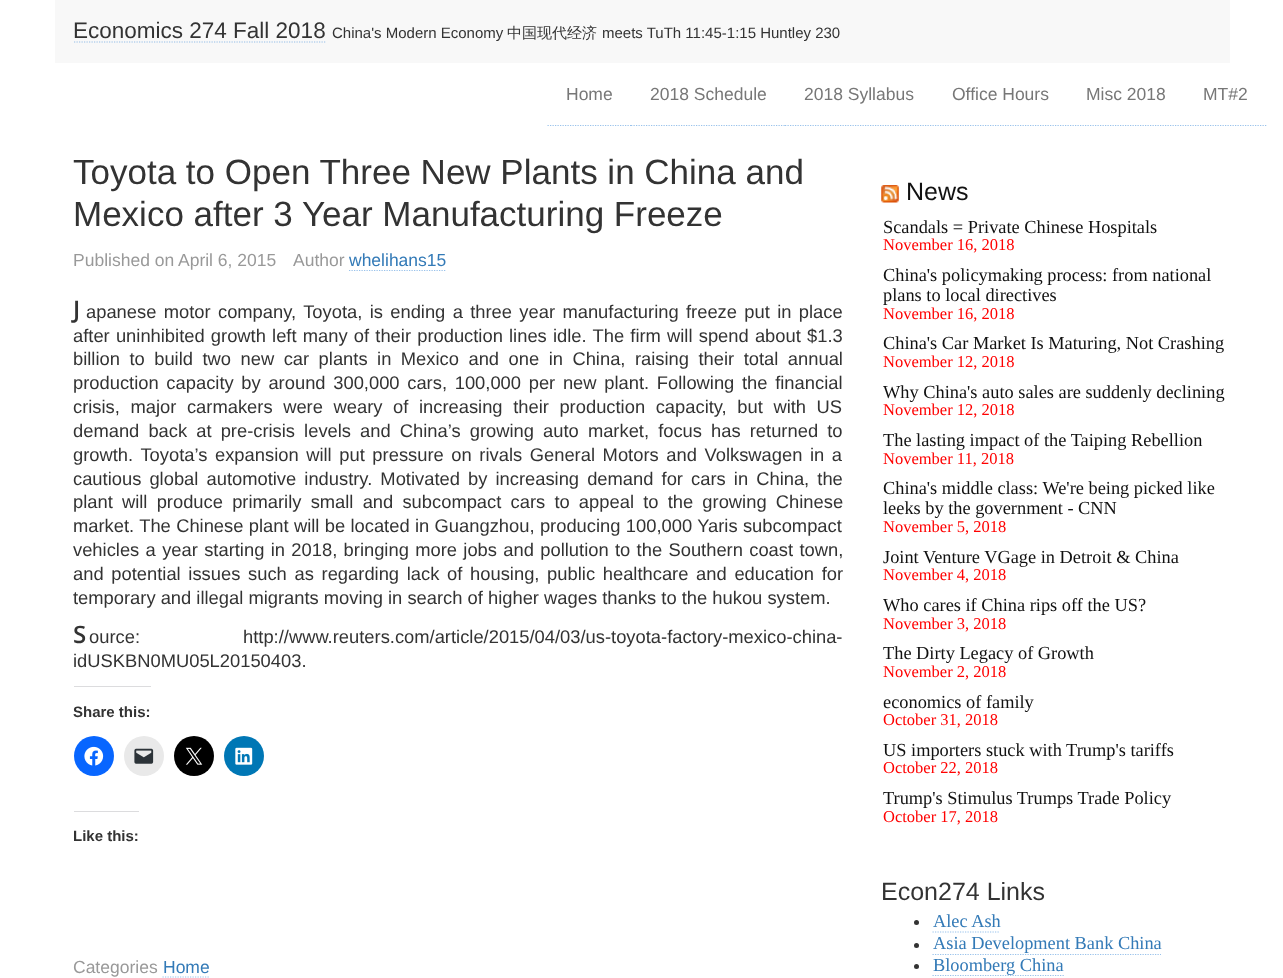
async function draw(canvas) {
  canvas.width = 1283;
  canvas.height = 978;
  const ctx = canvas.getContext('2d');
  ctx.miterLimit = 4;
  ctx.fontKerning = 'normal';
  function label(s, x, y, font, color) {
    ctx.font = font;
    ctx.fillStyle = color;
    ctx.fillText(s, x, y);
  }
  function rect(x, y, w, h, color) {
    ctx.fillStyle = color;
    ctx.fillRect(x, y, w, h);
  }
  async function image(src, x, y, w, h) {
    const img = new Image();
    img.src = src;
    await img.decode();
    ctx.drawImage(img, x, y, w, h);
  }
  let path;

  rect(0, 0, 1283, 978, '#fff');
  rect(55, 0, 1175, 63, '#f8f8f8');
  path = new Path2D('M74 42H326');
  ctx.strokeStyle = '#95bee6';
  ctx.lineWidth = 1.2;
  ctx.setLineDash([1.25, 1.25]);
  ctx.stroke(path);
  label('Economics 274 Fall 2018', 73, 38, '22.5px Liberation Sans', '#333');
  label('China\'s Modern Economy', 332, 38, '15px Liberation Sans', '#333');
  label('中国现代经济', 507, 38, '500 15px WenQuanYi Zen Hei', '#333');
  label('meets TuTh 11:45-1:15 Huntley 230', 602, 38, '15px Liberation Sans', '#333');
  path = new Path2D('M547.5 125.5H631');
  ctx.strokeStyle = '#99c2eb';
  ctx.stroke(path);
  label('Home', 566, 100, '17.5px Liberation Sans', '#777');
  path = new Path2D('M631 125.5H785');
  ctx.stroke(path);
  label('2018 Schedule', 650, 100, '17.5px Liberation Sans', '#777');
  path = new Path2D('M785 125.5H932.5');
  ctx.stroke(path);
  label('2018 Syllabus', 804, 100, '17.5px Liberation Sans', '#777');
  path = new Path2D('M932.5 125.5H1067.5');
  ctx.stroke(path);
  label('Office Hours', 952, 100, '17.5px Liberation Sans', '#777');
  path = new Path2D('M1067.5 125.5H1185');
  ctx.stroke(path);
  label('Misc 2018', 1086, 100, '17.5px Liberation Sans', '#777');
  path = new Path2D('M1185 125.5H1267.5');
  ctx.stroke(path);
  label('MT#2', 1203, 100, '17.5px Liberation Sans', '#777');
  label('Toyota to Open Three New Plants in China and', 73, 184, '35px Liberation Sans', '#333');
  label('Mexico after 3 Year Manufacturing Freeze', 73, 226, '35px Liberation Sans', '#333');
  label('Published on', 73, 266, '17.5px Liberation Sans', '#999');
  label('April 6, 2015', 178, 266, '17.5px Liberation Sans', '#999');
  label('Author', 293, 266, '17.5px Liberation Sans', '#999');
  label('whelihans15', 349, 266, '17.5px Liberation Sans', '#337ab7');
  path = new Path2D('M349 270.5H446');
  ctx.stroke(path);
  label('J', 73, 318, '500 24px Noto Sans', '#333');
  ctx.wordSpacing = '2.25px';
  label('apanese motor company, Toyota, is ending a three year manufacturing freeze put in place', 86, 318, '18.35px Liberation Sans', '#333');
  ctx.wordSpacing = '1.1px';
  label('after uninhibited growth left many of their production lines idle. The firm will spend about $1.3', 73, 342, '18.35px Liberation Sans', '#333');
  ctx.wordSpacing = '4.4px';
  label('billion to build two new car plants in Mexico and one in China, raising their total annual', 73, 365, '18.35px Liberation Sans', '#333');
  ctx.wordSpacing = '2.6px';
  label('production capacity by around 300,000 cars, 100,000 per new plant. Following the financial', 73, 389, '18.35px Liberation Sans', '#333');
  ctx.wordSpacing = '5.5px';
  label('crisis, major carmakers were weary of increasing their production capacity, but with US', 73, 413, '18.35px Liberation Sans', '#333');
  ctx.wordSpacing = '4px';
  label('demand back at pre-crisis levels and China’s growing auto market, focus has returned to', 73, 437, '18.35px Liberation Sans', '#333');
  ctx.wordSpacing = '2.5px';
  label('growth. Toyota’s expansion will put pressure on rivals General Motors and Volkswagen in a', 73, 461, '18.35px Liberation Sans', '#333');
  ctx.wordSpacing = '3px';
  label('cautious global automotive industry. Motivated by increasing demand for cars in China, the', 73, 485, '18.35px Liberation Sans', '#333');
  ctx.wordSpacing = '4.1px';
  label('plant will produce primarily small and subcompact cars to appeal to the growing Chinese', 73, 508, '18.35px Liberation Sans', '#333');
  ctx.wordSpacing = '0.25px';
  label('market. The Chinese plant will be located in Guangzhou, producing 100,000 Yaris subcompact', 73, 532, '18.35px Liberation Sans', '#333');
  ctx.wordSpacing = '1.25px';
  label('vehicles a year starting in 2018, bringing more jobs and pollution to the Southern coast town,', 73, 556, '18.35px Liberation Sans', '#333');
  ctx.wordSpacing = '2.6px';
  label('and potential issues such as regarding lack of housing, public healthcare and education for', 73, 580, '18.35px Liberation Sans', '#333');
  ctx.wordSpacing = '0px';
  label('temporary and illegal migrants moving in search of higher wages thanks to the hukou system.', 73, 604, '18.35px Liberation Sans', '#333');
  label('S', 73, 643, '500 24px Noto Sans', '#333');
  label('ource:', 89, 643, '18.35px Liberation Sans', '#333');
  label('http://www.reuters.com/article/2015/04/03/us-toyota-factory-mexico-china-', 243, 643, '18.35px Liberation Sans', '#333');
  label('idUSKBN0MU05L20150403.', 73, 667, '18.35px Liberation Sans', '#333');
  rect(74, 686, 77, 1, '#dcdcde');
  label('Share this:', 73, 717, 'bold 15px Liberation Sans', '#333');
  ctx.fillStyle = '#0866ff';
  ctx.beginPath();
  ctx.arc(94, 756, 20, 0, 2 * Math.PI);
  ctx.fill();
  await image('assets/img1.png', 84, 746, 20, 20);
  ctx.fillStyle = '#e9e9e9';
  ctx.beginPath();
  ctx.arc(144, 756, 20, 0, 2 * Math.PI);
  ctx.fill();
  await image('assets/img2.png', 134, 748, 20, 16);
  ctx.fillStyle = '#000';
  ctx.beginPath();
  ctx.arc(194, 756, 20, 0, 2 * Math.PI);
  ctx.fill();
  await image('assets/img3.png', 185, 747, 18, 18);
  ctx.fillStyle = '#0077b5';
  ctx.beginPath();
  ctx.arc(244, 756, 20, 0, 2 * Math.PI);
  ctx.fill();
  await image('assets/img4.png', 235, 747, 18, 18);
  rect(74, 811, 65, 1, '#dcdcde');
  label('Like this:', 73, 841, 'bold 15px Liberation Sans', '#333');
  label('Categories', 73, 973, '17.5px Liberation Sans', '#999');
  label('Home', 163, 973, '17.5px Liberation Sans', '#337ab7');
  path = new Path2D('M162.5 977H209');
  ctx.stroke(path);
  await image('assets/img5.png', 881, 185, 18, 18);
  label('News', 906, 200, '25px Liberation Sans', '#111');
  label('Scandals = Private Chinese Hospitals', 883, 233, '18.35px Liberation Serif', '#111');
  label('November 16, 2018', 883, 250, '16.5px Liberation Serif', '#f00');
  label('China\'s policymaking process: from national', 883, 281, '18.35px Liberation Serif', '#111');
  label('plans to local directives', 883, 301, '18.35px Liberation Serif', '#111');
  label('November 16, 2018', 883, 319, '16.5px Liberation Serif', '#f00');
  label('China\'s Car Market Is Maturing, Not Crashing', 883, 349, '18.35px Liberation Serif', '#111');
  label('November 12, 2018', 883, 367, '16.5px Liberation Serif', '#f00');
  label('Why China\'s auto sales are suddenly declining', 883, 398, '18.35px Liberation Serif', '#111');
  label('November 12, 2018', 883, 415, '16.5px Liberation Serif', '#f00');
  label('The lasting impact of the Taiping Rebellion', 883, 446, '18.35px Liberation Serif', '#111');
  label('November 11, 2018', 883, 464, '16.5px Liberation Serif', '#f00');
  label('China\'s middle class: We\'re being picked like', 883, 494, '18.35px Liberation Serif', '#111');
  label('leeks by the government - CNN', 883, 514, '18.35px Liberation Serif', '#111');
  label('November 5, 2018', 883, 532, '16.5px Liberation Serif', '#f00');
  label('Joint Venture VGage in Detroit & China', 883, 563, '18.35px Liberation Serif', '#111');
  label('November 4, 2018', 883, 580, '16.5px Liberation Serif', '#f00');
  label('Who cares if China rips off the US?', 883, 611, '18.35px Liberation Serif', '#111');
  label('November 3, 2018', 883, 629, '16.5px Liberation Serif', '#f00');
  label('The Dirty Legacy of Growth', 883, 659, '18.35px Liberation Serif', '#111');
  label('November 2, 2018', 883, 677, '16.5px Liberation Serif', '#f00');
  label('economics of family', 883, 708, '18.35px Liberation Serif', '#111');
  label('October 31, 2018', 883, 725, '16.5px Liberation Serif', '#f00');
  label('US importers stuck with Trump\'s tariffs', 883, 756, '18.35px Liberation Serif', '#111');
  label('October 22, 2018', 883, 773, '16.5px Liberation Serif', '#f00');
  label('Trump\'s Stimulus Trumps Trade Policy', 883, 804, '18.35px Liberation Serif', '#111');
  label('October 17, 2018', 883, 822, '16.5px Liberation Serif', '#f00');
  label('Econ274 Links', 881, 900, '25px Liberation Sans', '#333');
  ctx.beginPath();
  ctx.arc(916.5, 922.5, 2.5, 0, 2 * Math.PI);
  ctx.fill();
  label('Alec Ash', 933, 927, '18.35px Liberation Serif', '#337ab7');
  path = new Path2D('M932.5 932H1000');
  ctx.stroke(path);
  ctx.fillStyle = '#333';
  ctx.beginPath();
  ctx.arc(916.5, 945.5, 2.5, 0, 2 * Math.PI);
  ctx.fill();
  label('Asia Development Bank China', 933, 949, '18.35px Liberation Serif', '#337ab7');
  path = new Path2D('M932.5 954.5H1161');
  ctx.stroke(path);
  ctx.fillStyle = '#333';
  ctx.beginPath();
  ctx.arc(916.5, 966.5, 2.5, 0, 2 * Math.PI);
  ctx.fill();
  path = new Path2D('M932.5 975.5H1064');
  ctx.stroke(path);
  label('Bloomberg China', 933, 971, '18.35px Liberation Serif', '#337ab7');
}

draw(document.querySelector('canvas'));
